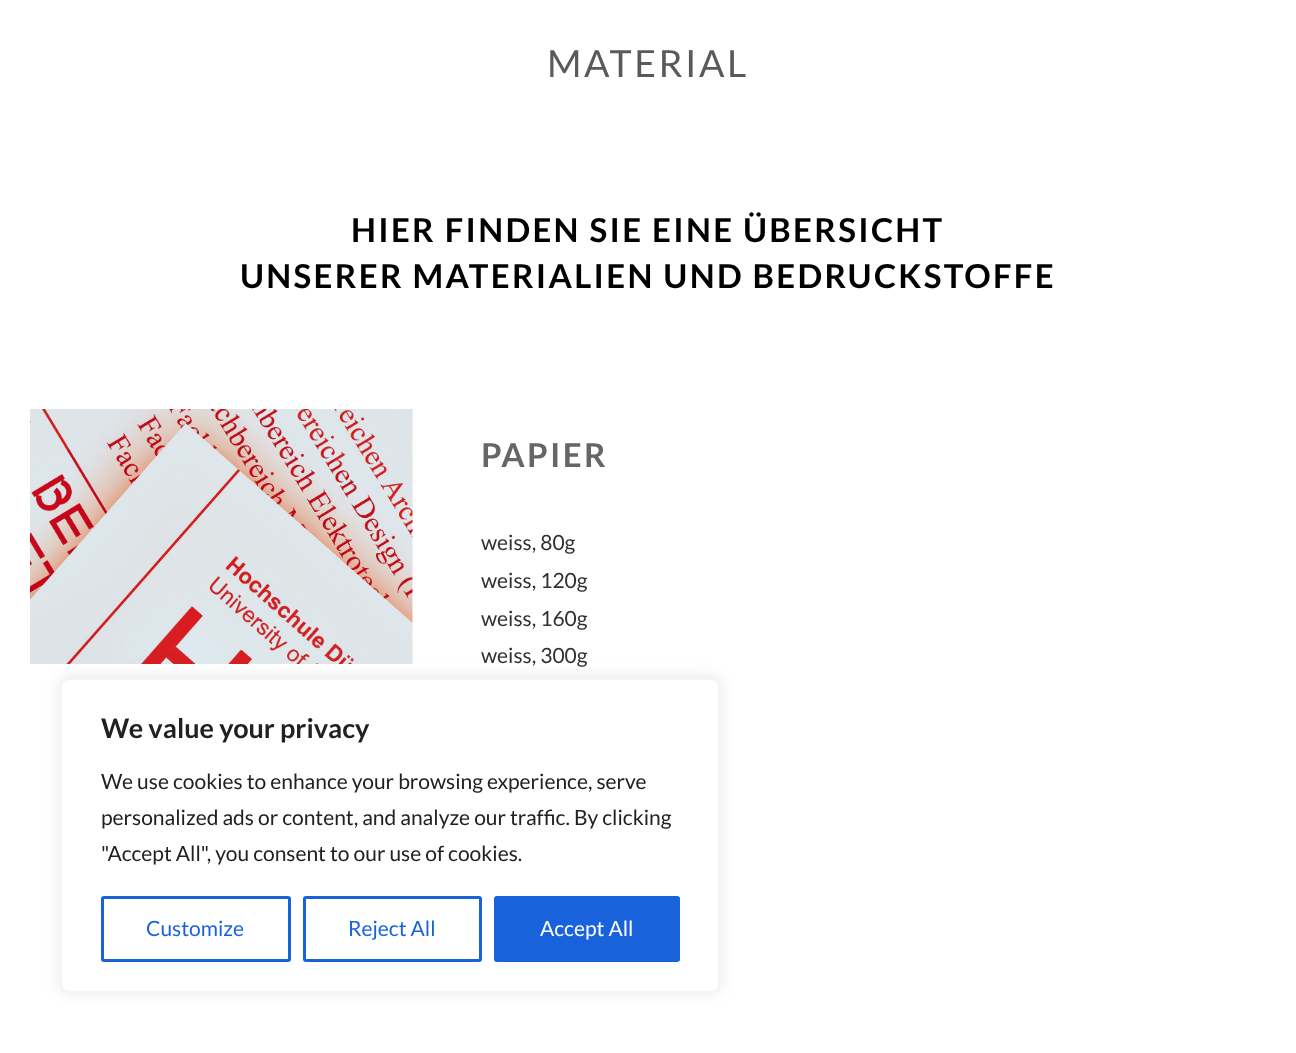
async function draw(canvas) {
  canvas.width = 1296;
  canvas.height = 1053;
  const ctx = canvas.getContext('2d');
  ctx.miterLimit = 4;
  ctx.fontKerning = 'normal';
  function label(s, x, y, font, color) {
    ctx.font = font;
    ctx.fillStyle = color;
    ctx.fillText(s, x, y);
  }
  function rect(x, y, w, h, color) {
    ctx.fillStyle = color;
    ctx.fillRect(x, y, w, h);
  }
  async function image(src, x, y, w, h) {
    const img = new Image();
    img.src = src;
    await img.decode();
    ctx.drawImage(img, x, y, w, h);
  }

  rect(0, 0, 1296, 1053, '#fff');
  ctx.letterSpacing = '2.5px';
  label('MATERIAL', 547, 77, '37.5px Lato', '#5b5a5a');
  ctx.letterSpacing = '2.3px';
  label('HIER FINDEN SIE EINE ÜBERSICHT', 351, 242, 'bold 33px Lato', '#000');
  label('UNSERER MATERIALIEN UND BEDRUCKSTOFFE', 240, 288, 'bold 33px Lato', '#000');
  await image('assets/img1.png', 30, 409, 383, 255);
  label('PAPIER', 481, 467, 'bold 33px Lato', '#666');
  ctx.letterSpacing = '0px';
  label('weiss, 80g', 481, 550, '21px Lato', '#313131');
  label('weiss, 120g', 481, 588, '21px Lato', '#313131');
  label('weiss, 160g', 481, 626, '21px Lato', '#313131');
  label('weiss, 300g', 481, 663, '21px Lato', '#313131');
  ctx.fillStyle = '#acabab4d';
  ctx.filter = 'blur(7.5px)';
  ctx.beginPath();
  ctx.roundRect(60, 677, 660, 315, 9);
  ctx.fill();
  ctx.filter = 'none';
  ctx.fillStyle = '#fff';
  ctx.beginPath();
  ctx.roundRect(61, 679, 658, 313, 8);
  ctx.fill();
  ctx.strokeStyle = '#f4f4f4';
  ctx.lineWidth = 2;
  ctx.stroke();
  label('We value your privacy', 101, 738, 'bold 27px Lato', '#212121');
  label('We use cookies to enhance your browsing experience, serve', 101, 789, '21px Lato', '#212121');
  label('personalized ads or content, and analyze our traffic. By clicking', 101, 825, '21px Lato', '#212121');
  label('"Accept All", you consent to our use of cookies.', 101, 861, '21px Lato', '#212121');
  ctx.beginPath();
  ctx.roundRect(102.5, 897.5, 187, 63, 1.5);
  ctx.strokeStyle = '#1863dc';
  ctx.lineWidth = 3;
  ctx.stroke();
  label('Customize', 146, 936, '21px Lato', '#1863dc');
  ctx.beginPath();
  ctx.roundRect(304.5, 897.5, 176, 63, 1.5);
  ctx.stroke();
  label('Reject All', 348, 936, '21px Lato', '#1863dc');
  ctx.beginPath();
  ctx.roundRect(495.5, 897.5, 183, 63, 1.5);
  ctx.fill();
  ctx.stroke();
  label('Accept All', 540, 936, '21px Lato', '#fff');
}

draw(document.querySelector('canvas'));
